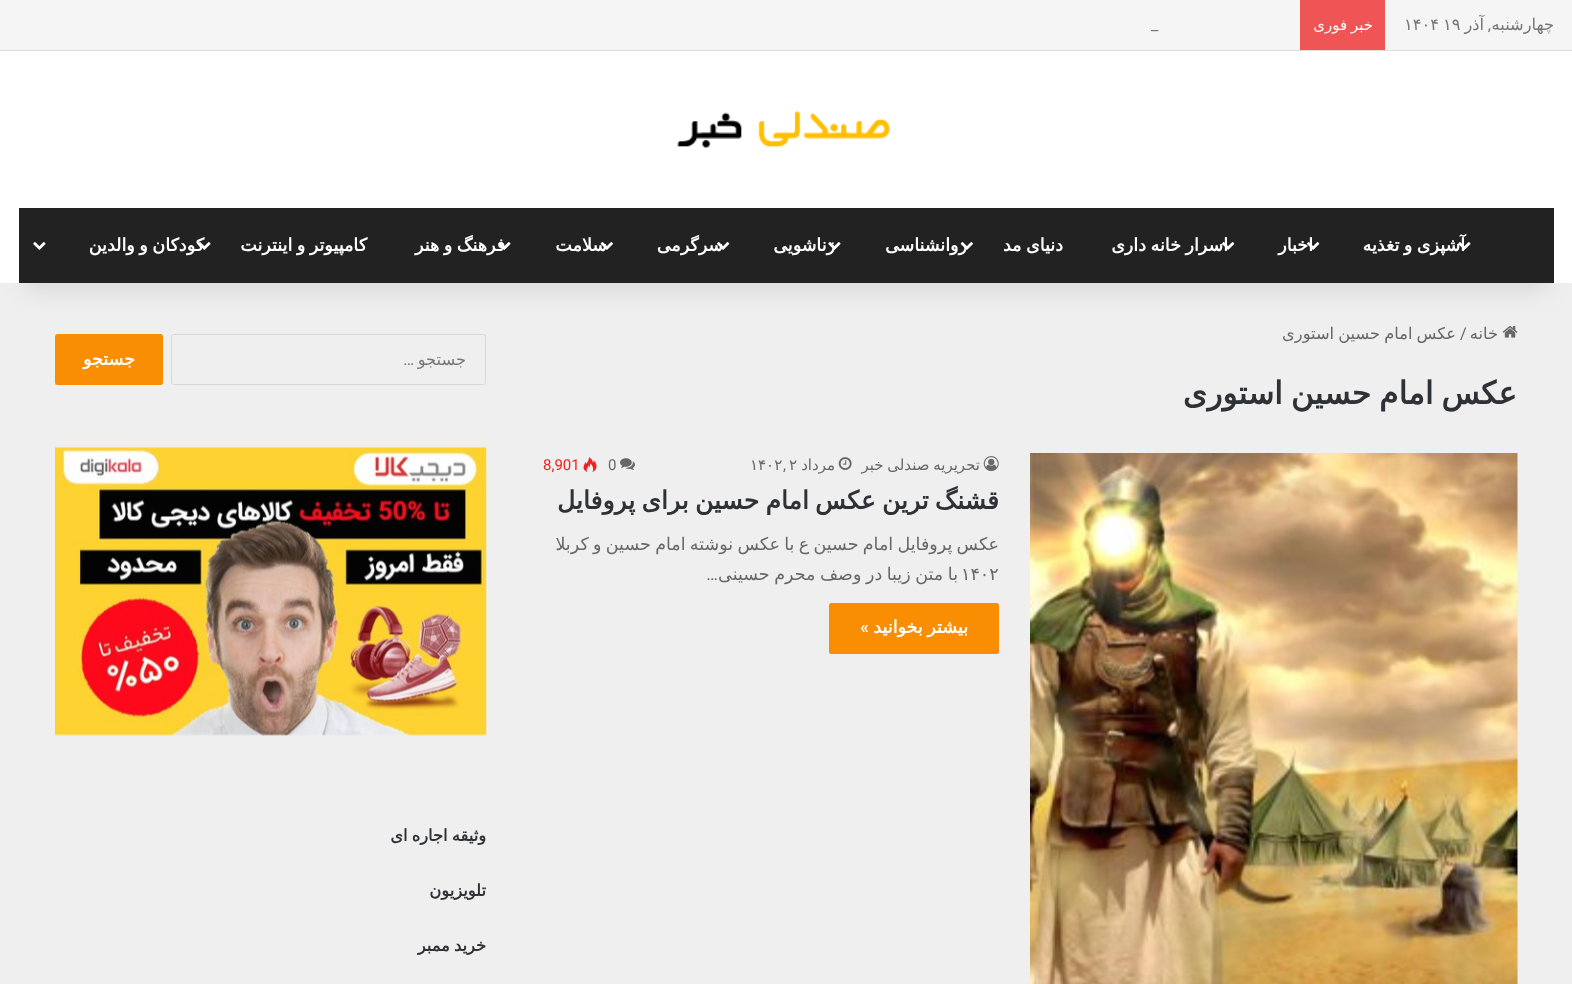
async function draw(canvas) {
  canvas.width = 1572;
  canvas.height = 984;
  const ctx = canvas.getContext('2d');
  ctx.miterLimit = 4;
  ctx.fontKerning = 'normal';
  function label(s, x, y, font, color) {
    ctx.font = font;
    ctx.fillStyle = color;
    ctx.fillText(s, x, y);
  }
  function rect(x, y, w, h, color) {
    ctx.fillStyle = color;
    ctx.fillRect(x, y, w, h);
  }
  function roundedRect(x, y, w, h, r, color) {
    ctx.fillStyle = color;
    ctx.beginPath();
    ctx.roundRect(x, y, w, h, r);
    ctx.fill();
  }
  async function image(src, x, y, w, h) {
    const img = new Image();
    img.src = src;
    await img.decode();
    ctx.drawImage(img, x, y, w, h);
  }

  rect(0, 0, 1572, 984, '#efefef');
  await image('assets/img12.png', 1502, 326, 16, 12);
  ctx.fillStyle = '#0000001a';
  ctx.filter = 'blur(12.5px)';
  ctx.beginPath();
  ctx.rect(25, 56, 1523, 233);
  ctx.fill();
  ctx.filter = 'none';
  rect(0, 51, 1572, 232, '#fff');
  rect(0, 0, 1572, 50, '#f5f5f5');
  rect(0, 50, 1572, 1, '#ddd');
  ctx.direction = 'rtl';
  label('چهارشنبه', 1554, 30, '16.25px DejaVu Sans', '#767676');
  label('آذر', 1484, 30, '16.25px DejaVu Sans', '#767676');
  ctx.direction = 'ltr';
  label('۱۹', 1443, 30, '16.25px DejaVu Sans', '#767676');
  label('۱۴۰۴', 1404, 30, '16.25px DejaVu Sans', '#767676');
  ctx.direction = 'rtl';
  label(',', 1491, 30, '16.25px Roboto', '#767676');
  rect(1300, 0, 85, 50, '#f05555');
  ctx.wordSpacing = '-1px';
  label('خبر فوری', 1373, 30, '15px DejaVu Sans', '#fff');
  ctx.wordSpacing = '0px';
  ctx.direction = 'ltr';
  label('_', 1151, 30, '16.25px Roboto', '#767676');
  await image('assets/img1.png', 677, 111, 214, 37);
  rect(19, 208, 1535, 75, '#222');
  ctx.wordSpacing = '-1px';
  ctx.direction = 'rtl';
  label('آشپزی و تغذیه', 1465, 251, 'bold 17.5px DejaVu Sans', '#fff');
  await image('assets/img2.png', 1458, 242, 13, 8);
  ctx.wordSpacing = '0px';
  label('اخبار', 1313, 251, 'bold 17.5px DejaVu Sans', '#fff');
  await image('assets/img3.png', 1307, 242, 13, 8);
  ctx.wordSpacing = '-1px';
  label('اسرار خانه داری', 1228, 251, 'bold 17.5px DejaVu Sans', '#fff');
  await image('assets/img4.png', 1222, 242, 13, 8);
  label('دنیای مد', 1063, 251, 'bold 17.5px DejaVu Sans', '#fff');
  ctx.wordSpacing = '0px';
  label('روانشناسی', 967, 251, 'bold 17.5px DejaVu Sans', '#fff');
  await image('assets/img5.png', 960, 242, 13, 8);
  label('زناشویی', 835, 251, 'bold 17.5px DejaVu Sans', '#fff');
  await image('assets/img6.png', 828, 242, 13, 8);
  label('سرگرمی', 723, 251, 'bold 17.5px DejaVu Sans', '#fff');
  await image('assets/img7.png', 717, 242, 13, 8);
  label('سلامت', 607, 251, 'bold 17.5px DejaVu Sans', '#fff');
  await image('assets/img8.png', 600, 242, 13, 8);
  ctx.wordSpacing = '-1px';
  label('فرهنگ و هنر', 505, 251, 'bold 17.5px DejaVu Sans', '#fff');
  await image('assets/img9.png', 498, 242, 13, 8);
  label('کامپیوتر و اینترنت', 367, 251, 'bold 17.5px DejaVu Sans', '#fff');
  label('کودکان و والدین', 204, 251, 'bold 17.5px DejaVu Sans', '#fff');
  await image('assets/img10.png', 198, 242, 13, 8);
  await image('assets/img11.png', 33, 242, 13, 8);
  ctx.wordSpacing = '0px';
  label('خانه', 1498, 339, '16.25px DejaVu Sans', '#676767');
  ctx.direction = 'ltr';
  label('/', 1460, 339, '16.25px Roboto', '#676767');
  ctx.wordSpacing = '-1px';
  ctx.direction = 'rtl';
  label('عکس امام حسین استوری', 1456, 339, '16.25px DejaVu Sans', '#676767');
  ctx.wordSpacing = '-2px';
  label('عکس امام حسین استوری', 1517, 404, 'bold 31.25px DejaVu Sans', '#2e3136');
  await image('assets/img13.png', 1030, 453, 488, 531);
  await image('assets/img14.png', 983, 456, 16, 16);
  ctx.wordSpacing = '-1px';
  label('تحریریه صندلی خبر', 980, 470, '15px DejaVu Sans', '#676767');
  await image('assets/img15.png', 838, 457, 14, 13);
  ctx.wordSpacing = '0px';
  label('مرداد', 835, 470, '15px DejaVu Sans', '#676767');
  ctx.direction = 'ltr';
  label('۲', 789, 470, '15px DejaVu Sans', '#676767');
  label('۱۴۰۲', 750, 470, '15px DejaVu Sans', '#676767');
  label(',', 783, 470, '15px Roboto', '#676767');
  await image('assets/img16.png', 620, 458, 15, 12);
  label('0', 608, 470, '15px Roboto', '#676767');
  await image('assets/img17.png', 583, 457, 14, 15);
  label('8,901', 543, 470, '15px Roboto', '#f12020');
  ctx.wordSpacing = '-1.75px';
  ctx.direction = 'rtl';
  label('قشنگ ترین عکس امام حسین برای پروفایل', 999, 509, 'bold 25px DejaVu Sans', '#2e3136');
  ctx.wordSpacing = '-1.25px';
  label('عکس پروفایل امام حسین ع با عکس نوشته امام حسین و کربلا', 999, 550, '17.5px DejaVu Sans', '#676767');
  ctx.wordSpacing = '0px';
  ctx.direction = 'ltr';
  label('۱۴۰۲', 961, 580, '17.5px DejaVu Sans', '#676767');
  ctx.wordSpacing = '-1px';
  ctx.direction = 'rtl';
  label('با متن زیبا در وصف محرم حسینی', 958, 580, '17.5px DejaVu Sans', '#676767');
  ctx.wordSpacing = '0px';
  label('…', 718, 580, '17.5px Roboto', '#676767');
  roundedRect(829, 603, 170, 51, 2.5, '#f98e02');
  ctx.wordSpacing = '-1px';
  label('بیشتر بخوانید', 968, 633, 'bold 17.5px DejaVu Sans', '#fff');
  ctx.wordSpacing = '0px';
  label('»', 869, 633, '600 17.5px Roboto', '#fff');
  ctx.beginPath();
  ctx.roundRect(171.5, 334.5, 314, 50, 2);
  ctx.strokeStyle = '#d7d7d7';
  ctx.stroke();
  label('جستجو', 466, 365, '16.25px DejaVu Sans', '#767676');
  label('…', 414, 365, '16.25px Roboto', '#767676');
  roundedRect(55, 334, 108, 51, 2.5, '#f98e02');
  label('جستجو', 135, 365, 'bold 17.5px DejaVu Sans', '#fff');
  await image('assets/img18.png', 55, 447, 432, 289);
  ctx.save();
  ctx.beginPath();
  ctx.rect(55, 821, 431, 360);
  ctx.clip();
  ctx.wordSpacing = '-1px';
  label('وثیقه اجاره ای', 486, 841, 'bold 16.25px DejaVu Sans', '#2e3136');
  ctx.restore();
  label('تلویزیون', 486, 896, 'bold 16.25px DejaVu Sans', '#2e3136');
  ctx.wordSpacing = '-1px';
  label('خرید ممبر', 486, 951, 'bold 16.25px DejaVu Sans', '#2e3136');
}

draw(document.querySelector('canvas'));
